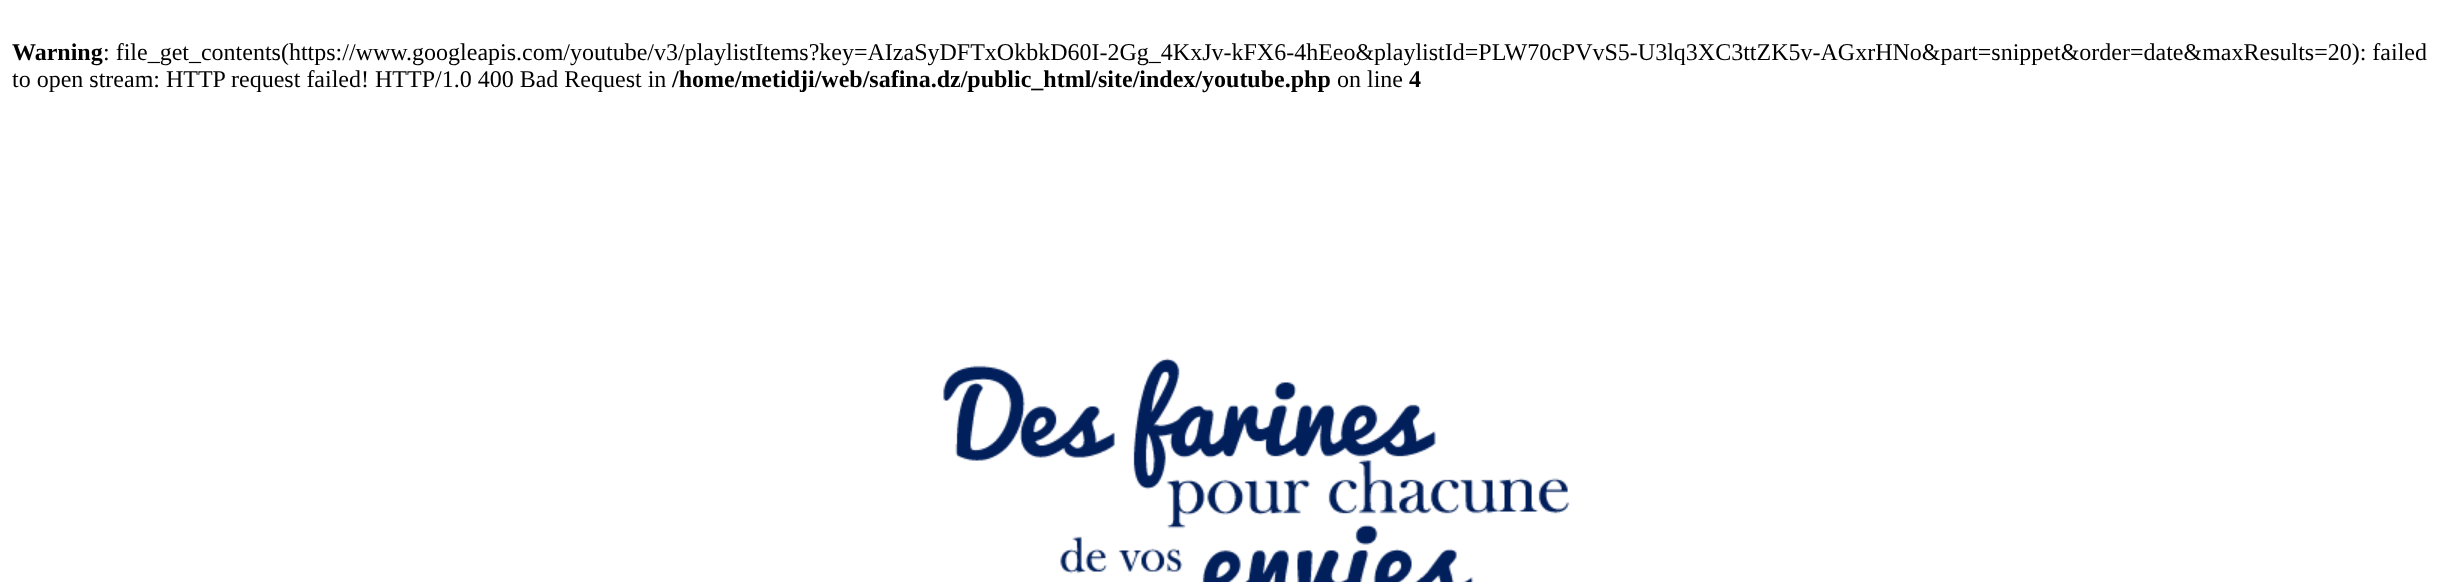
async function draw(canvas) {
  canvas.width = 2446;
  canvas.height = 582;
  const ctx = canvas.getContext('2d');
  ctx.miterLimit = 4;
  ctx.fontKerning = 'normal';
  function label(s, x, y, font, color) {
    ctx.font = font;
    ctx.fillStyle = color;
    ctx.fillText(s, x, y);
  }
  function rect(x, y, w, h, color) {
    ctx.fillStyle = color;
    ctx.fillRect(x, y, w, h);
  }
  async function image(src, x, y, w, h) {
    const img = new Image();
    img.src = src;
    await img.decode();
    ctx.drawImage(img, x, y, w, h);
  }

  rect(0, 0, 2446, 582, '#fff');
  label('Warning', 12, 60, 'bold 24px Liberation Serif', '#000');
  label(': file_get_contents(https://www.googleapis.com/youtube/v3/playlistItems?key=AIzaSyDFTxOkbkD60I-2Gg_4KxJv-kFX6-4hEeo&playlistId=PLW70cPVvS5-U3lq3XC3ttZK5v-AGxrHNo&part=snippet&order=date&maxResults=20): failed', 103, 60, '24px Liberation Serif', '#000');
  label('to open stream: HTTP request failed! HTTP/1.0 400 Bad Request in', 12, 87, '24px Liberation Serif', '#000');
  label('/home/metidji/web/safina.dz/public_html/site/index/youtube.php', 672, 87, 'bold 24px Liberation Serif', '#000');
  label('on line', 1337, 87, '24px Liberation Serif', '#000');
  label('4', 1409, 87, 'bold 24px Liberation Serif', '#000');
  await image('assets/img1.png', 943, 358, 627, 224);
}

draw(document.querySelector('canvas'));
